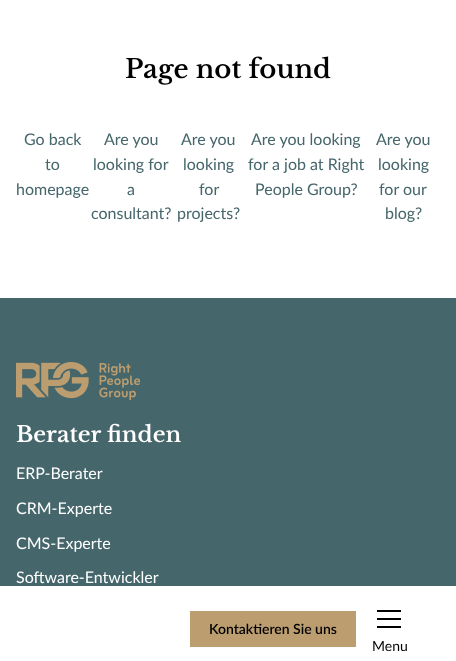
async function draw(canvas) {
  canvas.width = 456;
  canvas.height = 661;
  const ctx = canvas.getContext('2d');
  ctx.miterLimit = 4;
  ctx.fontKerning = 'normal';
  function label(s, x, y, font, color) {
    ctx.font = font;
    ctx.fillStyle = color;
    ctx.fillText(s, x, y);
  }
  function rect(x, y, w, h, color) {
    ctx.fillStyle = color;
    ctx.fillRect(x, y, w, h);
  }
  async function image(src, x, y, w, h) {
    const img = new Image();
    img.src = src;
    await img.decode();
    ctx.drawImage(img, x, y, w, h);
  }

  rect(0, 0, 456, 661, '#fff');
  label('Page not found', 125, 78, '600 26px Libre Baskerville', '#000');
  label('Go back', 24, 145, '16px Lato', '#45666b');
  label('to', 45, 170, '16px Lato', '#45666b');
  label('homepage', 16, 195, '16px Lato', '#45666b');
  label('Are you', 104, 145, '16px Lato', '#45666b');
  label('looking for', 93, 170, '16px Lato', '#45666b');
  label('a', 127, 195, '16px Lato', '#45666b');
  label('consultant?', 91, 219, '16px Lato', '#45666b');
  label('Are you', 181, 145, '16px Lato', '#45666b');
  label('looking', 183, 170, '16px Lato', '#45666b');
  label('for', 199, 195, '16px Lato', '#45666b');
  label('projects?', 177, 219, '16px Lato', '#45666b');
  label('Are you looking', 251, 145, '16px Lato', '#45666b');
  label('for a job at Right', 248, 170, '16px Lato', '#45666b');
  label('People Group?', 255, 195, '16px Lato', '#45666b');
  label('Are you', 376, 145, '16px Lato', '#45666b');
  label('looking', 378, 170, '16px Lato', '#45666b');
  label('for our', 379, 195, '16px Lato', '#45666b');
  label('blog?', 385, 219, '16px Lato', '#45666b');
  rect(0, 298, 456, 288, '#45666b');
  await image('assets/img1.png', 16, 362, 124, 38);
  label('Berater finden', 16, 442, '600 22px Libre Baskerville', '#fff');
  label('ERP-Berater', 16, 479, '16px Lato', '#fff');
  label('CRM-Experte', 16, 514, '16px Lato', '#fff');
  label('CMS-Experte', 16, 549, '16px Lato', '#fff');
  label('Software-Entwickler', 16, 583, '16px Lato', '#fff');
  rect(190, 611, 166, 36, '#bb9d6f');
  label('Kontaktieren Sie uns', 209, 634, '600 14px Lato', '#000');
  rect(377, 618, 24, 2, '#000');
  rect(377, 610, 24, 2, '#000');
  rect(377, 626, 24, 2, '#000');
  label('Menu', 372, 651, '14px Lato', '#000');
}

draw(document.querySelector('canvas'));
